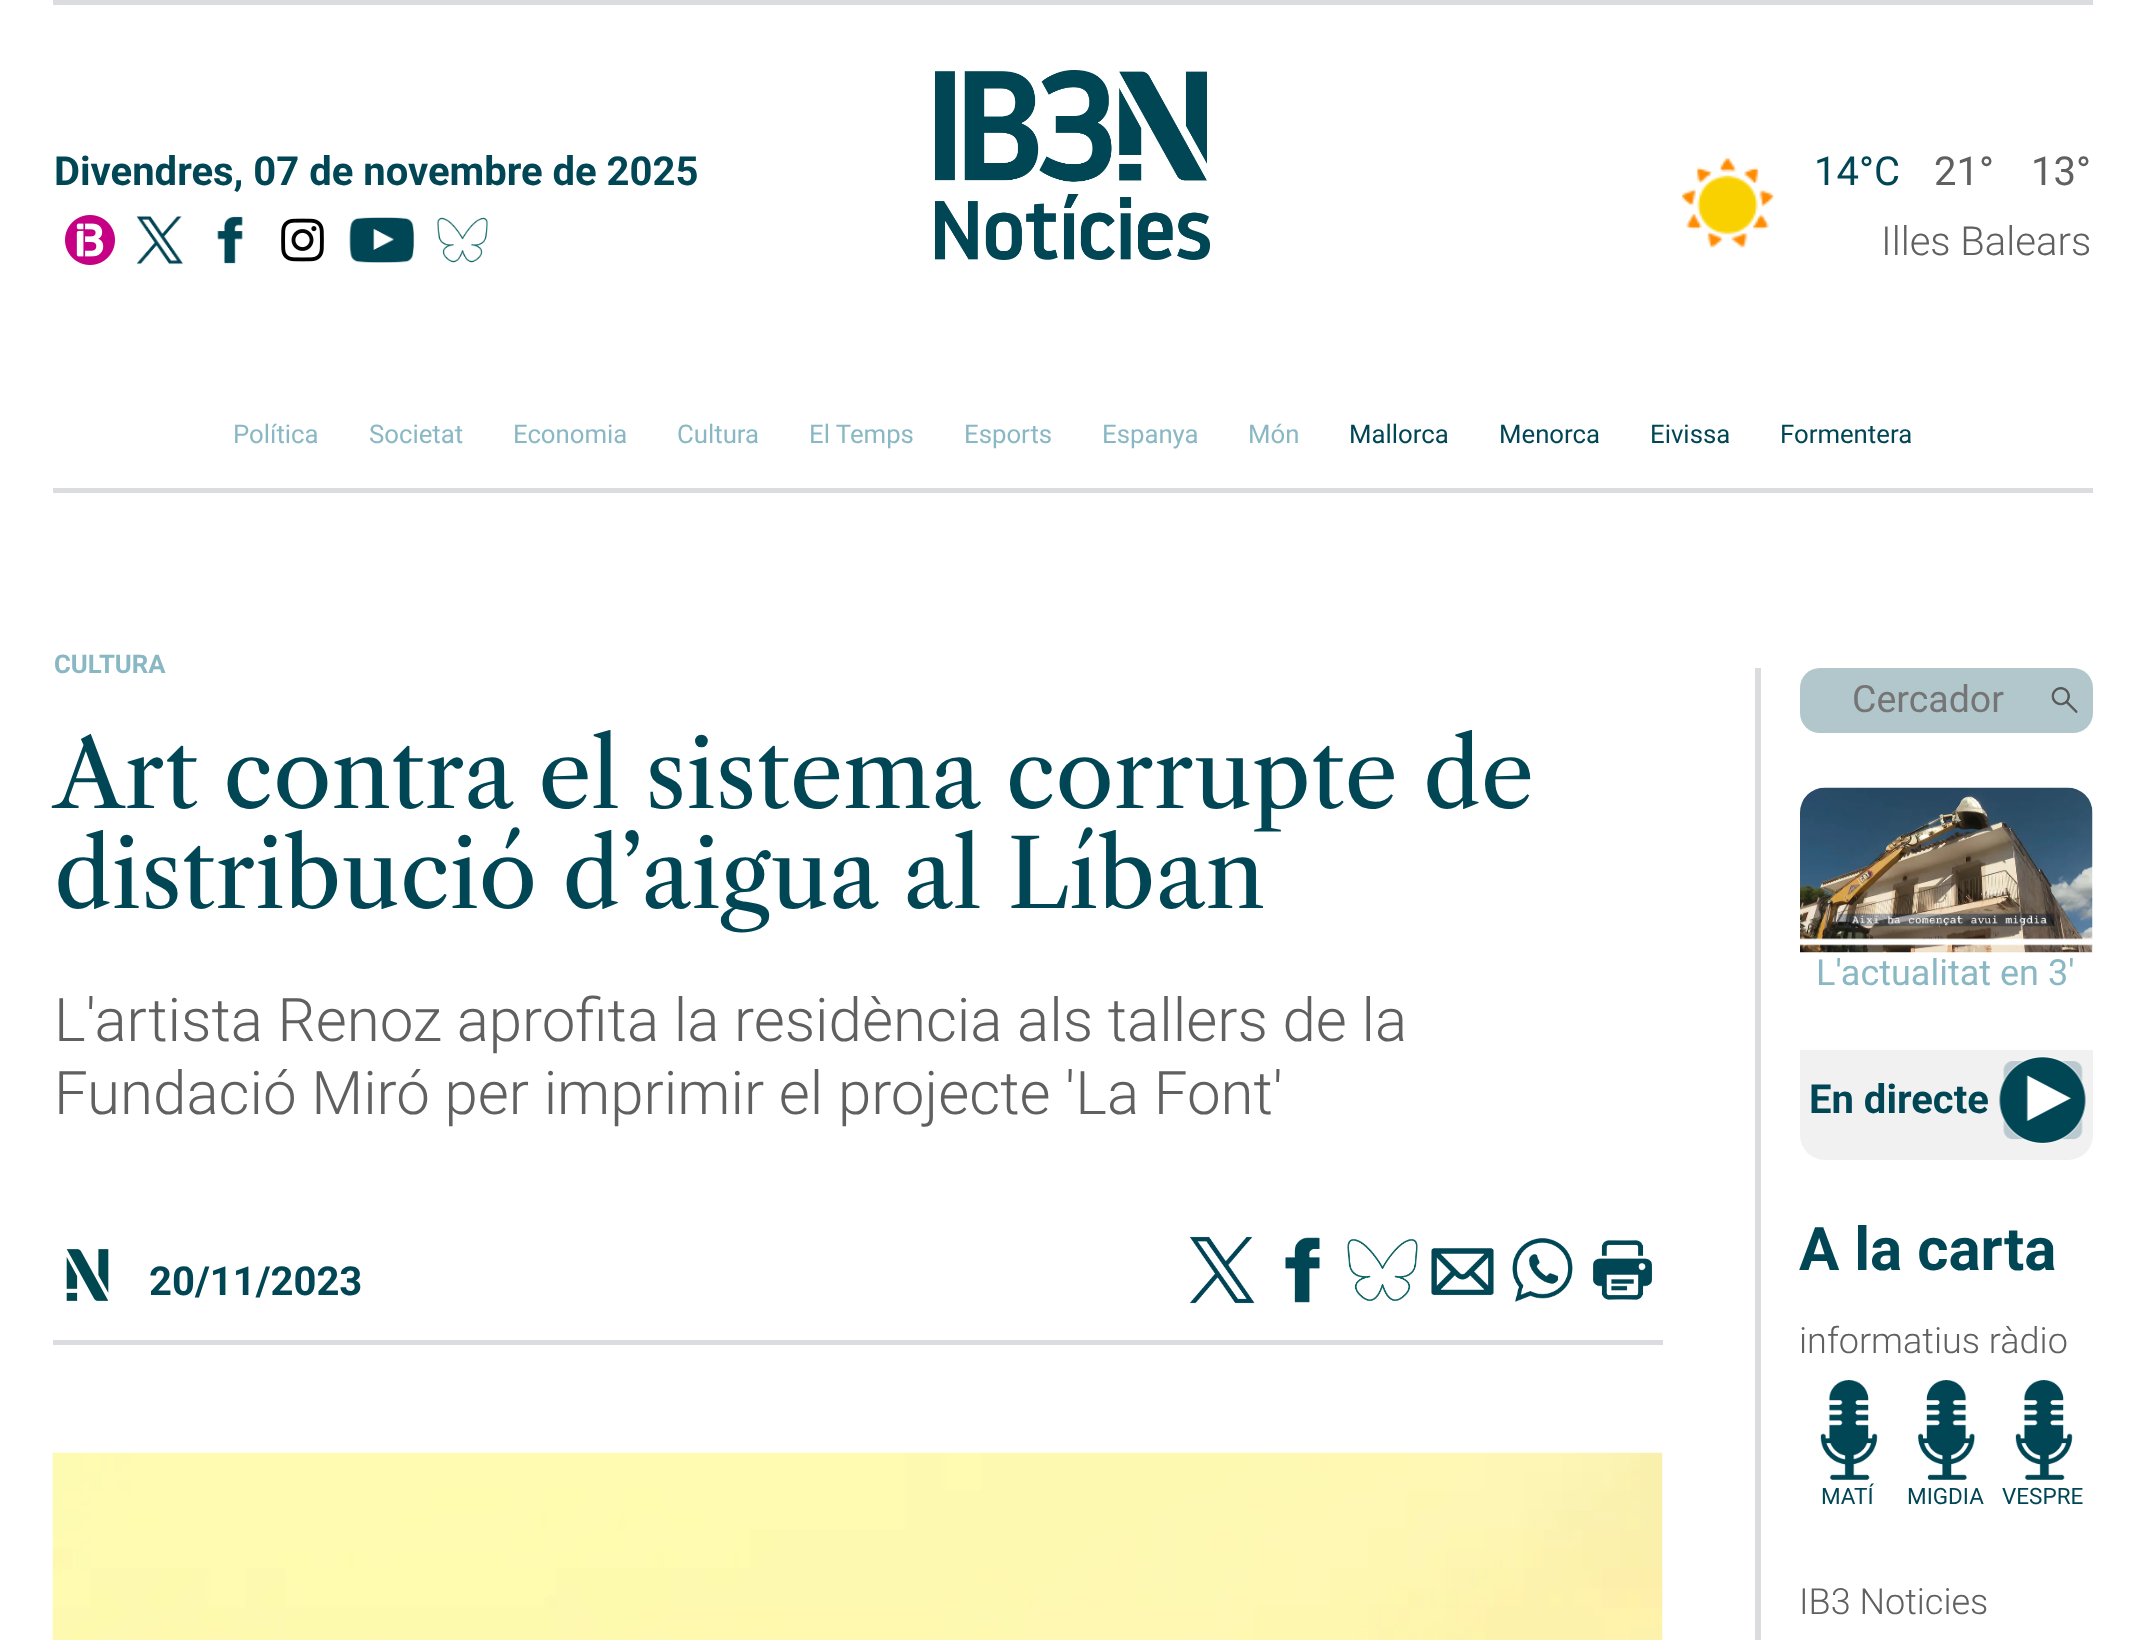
async function draw(canvas) {
  canvas.width = 2145;
  canvas.height = 1640;
  const ctx = canvas.getContext('2d');
  ctx.miterLimit = 4;
  ctx.fontKerning = 'normal';
  function label(s, x, y, font, color) {
    ctx.font = font;
    ctx.fillStyle = color;
    ctx.fillText(s, x, y);
  }
  function rect(x, y, w, h, color) {
    ctx.fillStyle = color;
    ctx.fillRect(x, y, w, h);
  }
  function roundedRect(x, y, w, h, r, color) {
    ctx.fillStyle = color;
    ctx.beginPath();
    ctx.roundRect(x, y, w, h, r);
    ctx.fill();
  }
  async function image(src, x, y, w, h) {
    const img = new Image();
    img.src = src;
    await img.decode();
    ctx.drawImage(img, x, y, w, h);
  }

  rect(0, 0, 2145, 1640, '#fff');
  rect(53, 488, 2040, 5, '#dadce0');
  rect(53, 0, 2040, 5, '#dadce0');
  label('Divendres, 07 de novembre de 2025', 54, 185, 'bold 40px Roboto', '#014655');
  await image('assets/img1.png', 65, 215, 50, 50);
  await image('assets/img2.png', 136, 216, 48, 49);
  await image('assets/img3.png', 217, 216, 26, 48);
  await image('assets/img4.png', 281, 218, 43, 44);
  await image('assets/img5.png', 349, 217, 66, 46);
  await image('assets/img6.png', 437, 217, 51, 46);
  await image('assets/img7.png', 935, 70, 275, 190);
  await image('assets/img8.png', 1681, 158, 93, 90);
  label('14°C', 1814, 185, '40px Roboto', '#014655');
  label('21°', 1934, 185, '40px Roboto', '#606060');
  label('13°', 2031, 185, '40px Roboto', '#606060');
  label('Illes Balears', 1881, 255, '300 40px Roboto', '#606060');
  label('Política', 233, 443, '25.75px Roboto', '#89b8c4');
  label('Societat', 369, 443, '25.75px Roboto', '#89b8c4');
  label('Economia', 513, 443, '25.75px Roboto', '#89b8c4');
  label('Cultura', 677, 443, '25.75px Roboto', '#89b8c4');
  label('El Temps', 809, 443, '25.75px Roboto', '#89b8c4');
  label('Esports', 964, 443, '25.75px Roboto', '#89b8c4');
  label('Espanya', 1102, 443, '25.75px Roboto', '#89b8c4');
  label('Món', 1248, 443, '25.75px Roboto', '#89b8c4');
  label('Mallorca', 1349, 443, '25.75px Roboto', '#014655');
  label('Menorca', 1499, 443, '25.75px Roboto', '#014655');
  label('Eivissa', 1650, 443, '25.75px Roboto', '#014655');
  label('Formentera', 1780, 443, '25.75px Roboto', '#014655');
  label('CULTURA', 54, 673, 'bold 25.75px Roboto', '#89b8c4');
  label('Art contra el sistema corrupte de', 54, 808, '95px Libre Caslon Text', '#014655');
  label('distribució d’aigua al Líban', 54, 908, '95px Libre Caslon Text', '#014655');
  label('L\'artista Renoz aprofita la residència als tallers de la', 54, 1041, '300 60px Roboto', '#606060');
  label('Fundació Miró per imprimir el projecte \'La Font\'', 54, 1114, '300 60px Roboto', '#606060');
  rect(53, 1340, 1610, 5, '#dadce0');
  await image('assets/img9.png', 66, 1249, 43, 52);
  label('20/11/2023', 149, 1295, 'bold 40px Roboto', '#014655');
  await image('assets/img10.png', 1189, 1236, 66, 68);
  await image('assets/img11.png', 1285, 1237, 35, 66);
  await image('assets/img12.png', 1347, 1239, 71, 62);
  await image('assets/img13.png', 1431, 1248, 63, 48);
  await image('assets/img14.png', 1512, 1237, 61, 65);
  await image('assets/img15.png', 1593, 1240, 60, 60);
  await image('assets/img16.png', 52, 1452, 1611, 188);
  rect(1755, 668, 6, 972, '#dadce0');
  roundedRect(1800, 668, 293, 65, 20, '#b2c7cc');
  label('Cercador', 1852, 712, '37.5px Roboto', '#757575');
  await image('assets/img17.png', 2051, 687, 27, 26);
  await image('assets/img18.png', 1800, 787, 293, 166);
  label('L\'actualitat en 3\'', 1816, 985, '36px Roboto', '#89b8c4');
  ctx.fillStyle = '#f1f1f1';
  ctx.beginPath();
  ctx.roundRect(1800, 1050, 293, 110, [0, 0, 25, 25]);
  ctx.fill();
  label('En directe', 1809, 1113, 'bold 40px Roboto', '#014655');
  await image('assets/img19.png', 1999, 1056, 87, 88);
  label('A la carta', 1799, 1270, 'bold 60px Roboto', '#014655');
  label('informatius ràdio', 1799, 1353, '300 36px Roboto', '#606060');
  await image('assets/img20.png', 1820, 1380, 58, 100);
  label('MATÍ', 1821, 1504, '22.5px Roboto', '#014655');
  await image('assets/img21.png', 1918, 1380, 57, 100);
  label('MIGDIA', 1907, 1504, '22.5px Roboto', '#014655');
  await image('assets/img20.png', 2015, 1380, 58, 100);
  label('VESPRE', 2002, 1504, '22.5px Roboto', '#014655');
  label('IB3 Noticies', 1799, 1614, '300 36px Roboto', '#606060');
}

draw(document.querySelector('canvas'));
